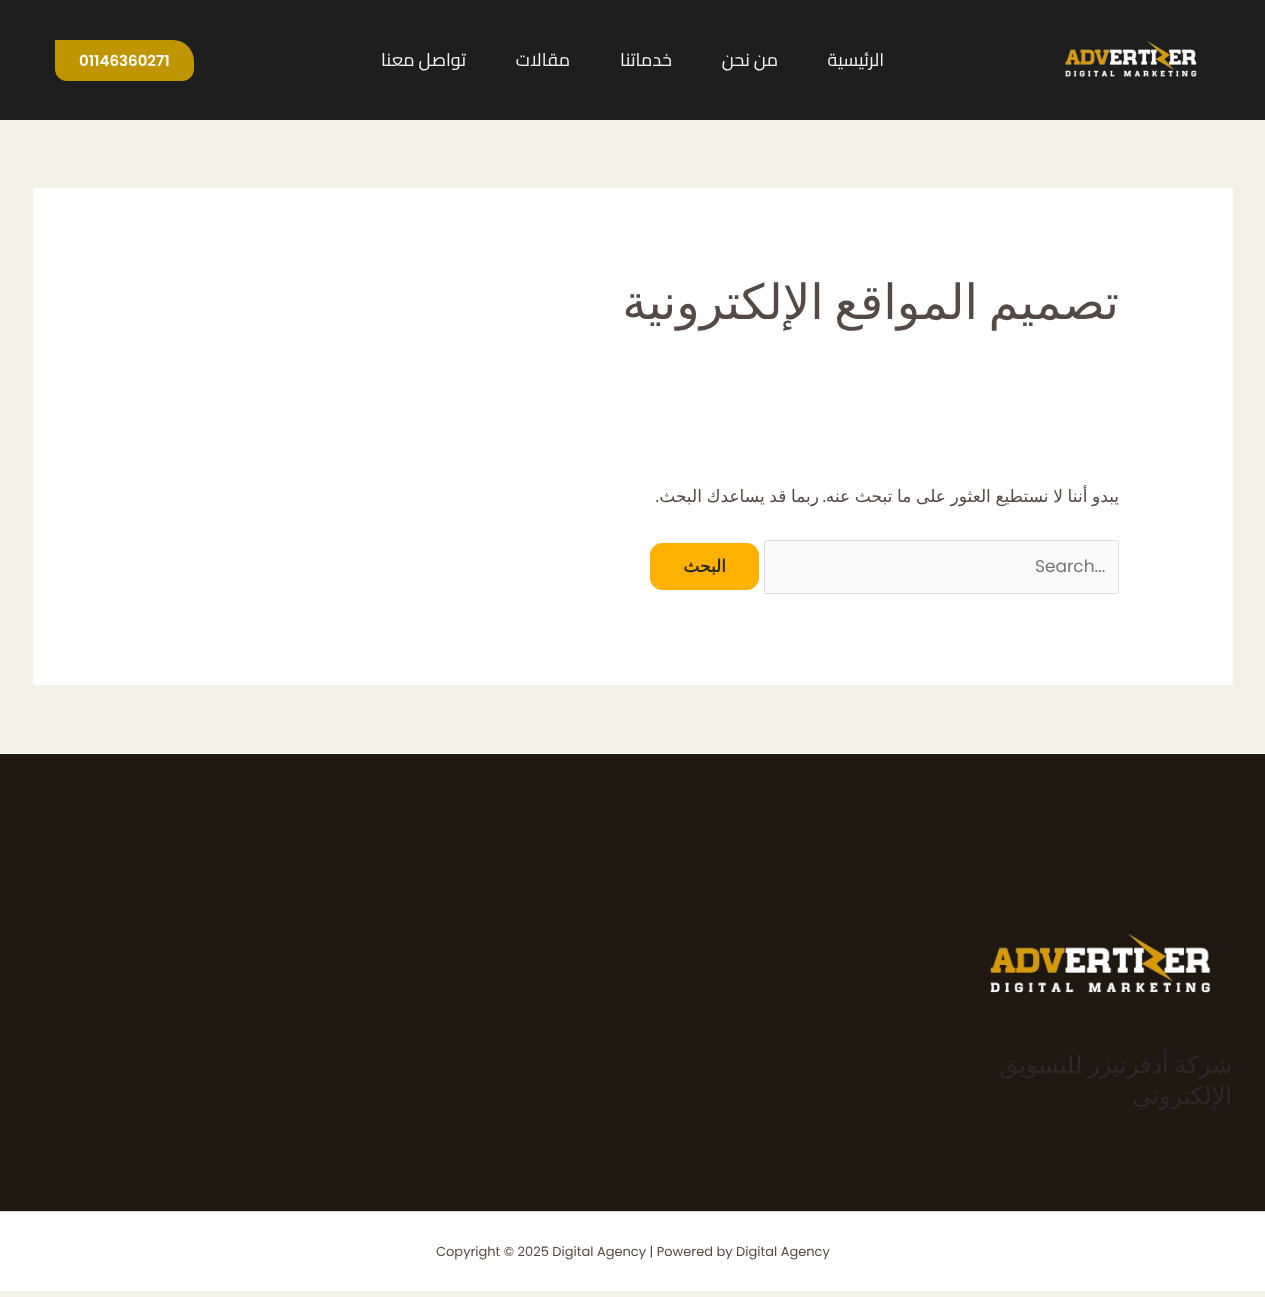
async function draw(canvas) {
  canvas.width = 1265;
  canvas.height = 1297;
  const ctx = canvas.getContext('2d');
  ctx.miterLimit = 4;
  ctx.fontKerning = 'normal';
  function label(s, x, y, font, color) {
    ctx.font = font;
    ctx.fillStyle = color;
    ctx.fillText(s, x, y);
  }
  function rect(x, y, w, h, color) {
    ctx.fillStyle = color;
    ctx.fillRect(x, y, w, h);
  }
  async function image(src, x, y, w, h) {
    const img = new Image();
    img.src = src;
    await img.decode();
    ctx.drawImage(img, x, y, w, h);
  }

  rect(0, 0, 1265, 1297, '#f2f1e5');
  rect(0, 0, 1265, 120, '#1e1e1e');
  await image('assets/img1.png', 1065, 41, 132, 36);
  ctx.direction = 'rtl';
  label('الرئيسية', 884, 66, '18px Cairo', '#f4f4f4');
  label('من نحن', 778, 66, '18px Cairo', '#f4f4f4');
  label('خدماتنا', 672, 66, '18px Cairo', '#f4f4f4');
  label('مقالات', 570, 66, '18px Cairo', '#f4f4f4');
  label('تواصل معنا', 466, 66, '18px Cairo', '#f4f4f4');
  ctx.fillStyle = '#bf9602';
  ctx.beginPath();
  ctx.roundRect(55, 40, 139, 41, [0, 21, 12, 12]);
  ctx.fill();
  ctx.direction = 'ltr';
  label('01146360271', 79, 66, '600 15px Poppins', '#fff');
  rect(33, 188, 1200, 497, '#fff');
  ctx.wordSpacing = '-5px';
  ctx.direction = 'rtl';
  label('تصميم المواقع الإلكترونية', 1119, 319, '48.5px DejaVu Sans', '#534a45');
  ctx.wordSpacing = '-0.75px';
  label('يبدو أننا لا نستطيع العثور على ما تبحث عنه', 1119, 502, '17px DejaVu Sans', '#534a45');
  ctx.wordSpacing = '0px';
  label('.', 826, 502, '17px Poppins', '#534a45');
  ctx.wordSpacing = '-0.75px';
  label('ربما قد يساعدك البحث', 819, 502, '17px DejaVu Sans', '#534a45');
  ctx.wordSpacing = '0px';
  label('.', 659, 502, '17px Poppins', '#534a45');
  ctx.fillStyle = '#fafafa';
  ctx.beginPath();
  ctx.roundRect(764.5, 540.5, 354, 53, 1.5);
  ctx.fill();
  ctx.strokeStyle = '#ddd';
  ctx.stroke();
  ctx.direction = 'ltr';
  label('Search...', 1035, 572, '17px Poppins', '#757575');
  ctx.fillStyle = '#ffb100';
  ctx.beginPath();
  ctx.roundRect(650.5, 543.5, 108, 46, 11.5);
  ctx.fill();
  ctx.strokeStyle = '#ffb100';
  ctx.stroke();
  ctx.direction = 'rtl';
  label('البحث', 726, 572, 'bold 17px DejaVu Sans', '#2c2927');
  rect(0, 753, 1265, 538, '#fff');
  rect(0, 754, 1265, 457, '#1e1810');
  await image('assets/img2.png', 990, 933, 221, 60);
  ctx.wordSpacing = '-2px';
  label('شركة أدفرتيزر للتسويق', 1232, 1073, '24px DejaVu Sans', '#2c2927');
  ctx.wordSpacing = '0px';
  label('الإلكتروني', 1232, 1104, '24px DejaVu Sans', '#2c2927');
  rect(0, 1211, 1265, 1, '#d7d7d7');
  ctx.direction = 'ltr';
  label('Copyright © 2025 Digital Agency | Powered by Digital Agency', 436, 1256, '13px Poppins', '#534a45');
}

draw(document.querySelector('canvas'));
